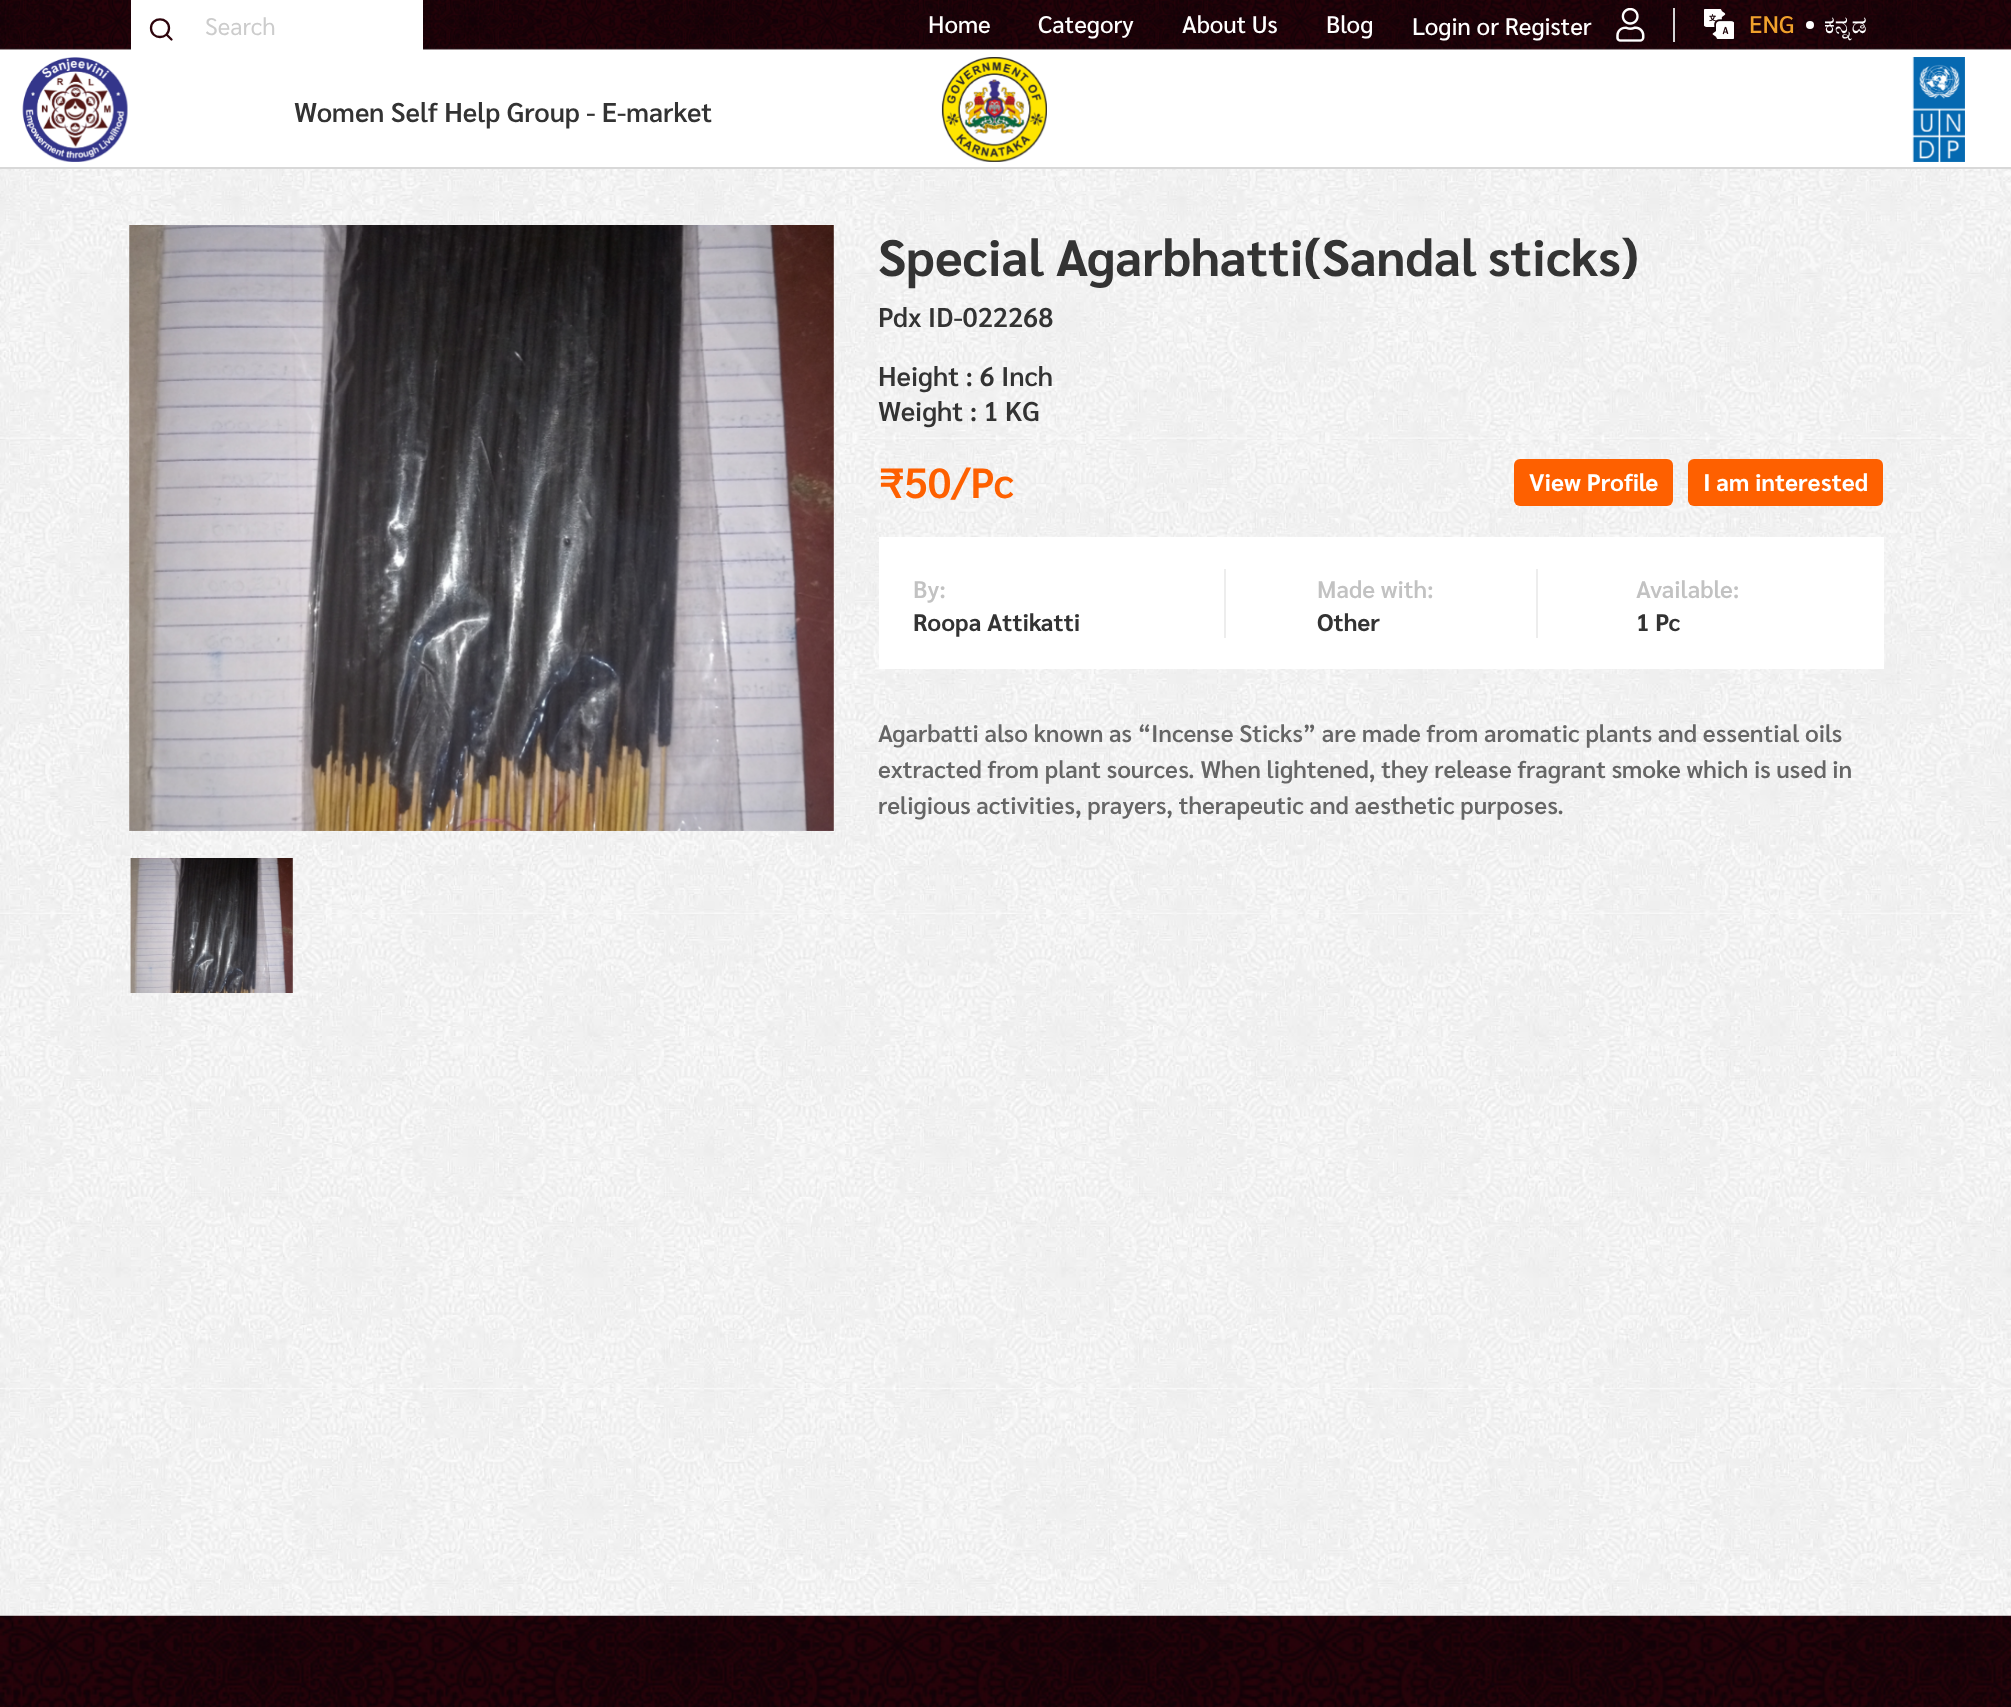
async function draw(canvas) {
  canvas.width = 2011;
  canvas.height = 1707;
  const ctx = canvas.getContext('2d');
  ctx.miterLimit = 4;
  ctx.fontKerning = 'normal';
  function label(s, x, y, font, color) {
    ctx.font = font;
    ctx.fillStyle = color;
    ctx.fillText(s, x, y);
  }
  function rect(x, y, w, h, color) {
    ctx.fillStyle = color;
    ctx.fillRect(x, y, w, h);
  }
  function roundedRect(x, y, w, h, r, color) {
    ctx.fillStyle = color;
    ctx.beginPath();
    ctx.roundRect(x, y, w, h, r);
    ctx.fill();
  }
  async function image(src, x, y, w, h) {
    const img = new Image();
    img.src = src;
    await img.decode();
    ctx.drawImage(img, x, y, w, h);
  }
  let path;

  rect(0, 0, 2011, 1707, '#fff');
  rect(0, 167, 2011, 2, '#d8d8d8');
  await image('assets/img1.png', 0, 0, 2011, 50);
  rect(131, 0, 292, 50, '#fff');
  path = new Path2D('M169 28C169 40 151 40 151 28C151 16.5 169 16.5 169 28ZM171.5 39.5L166.5 34.5');
  ctx.strokeStyle = '#2d040c';
  ctx.lineWidth = 2.3;
  ctx.lineCap = 'round';
  ctx.lineJoin = 'round';
  ctx.stroke(path);
  label('Search', 205, 35, '24px Sarabun', '#ccc');
  label('Home', 928, 33, '500 24px Sarabun', '#fff');
  label('Category', 1038, 33, '500 24px Sarabun', '#fff');
  label('About Us', 1182, 33, '500 24px Sarabun', '#fff');
  label('Blog', 1326, 33, '500 24px Sarabun', '#fff');
  rect(1673, 8, 2, 34, '#d6d6d6');
  label('Login or Register', 1412, 35, '500 24px Sarabun', '#fff');
  await image('assets/img2.png', 1616, 8, 29, 34);
  await image('assets/img3.png', 1704, 9, 30, 30);
  label('ENG', 1749, 33, '500 24px Sarabun', '#f0a12c');
  ctx.fillStyle = '#fff';
  ctx.beginPath();
  ctx.arc(1810, 25, 4, 0, 2 * Math.PI);
  ctx.fill();
  label('ಕನ್ನಡ', 1824, 33, '24px FreeSerif', '#fff');
  await image('assets/img4.png', 22, 57, 106, 105);
  label('Women Self Help Group - E-market', 294, 122, '600 27px Sarabun', '#333');
  await image('assets/img5.png', 941, 57, 106, 105);
  await image('assets/img6.png', 1912, 57, 53, 105);
  await image('assets/img10.png', 0, 1615, 2011, 92);
  await image('assets/img7.png', 0, 169, 2011, 1447);
  await image('assets/img8.png', 129, 225, 705, 606);
  await image('assets/img9.png', 130, 858, 163, 135);
  label('Special Agarbhatti(Sandal sticks)', 878, 276, 'bold 51px Sarabun', '#333');
  label('Pdx ID-022268', 878, 327, '600 27px Sarabun', '#333');
  label('Height : 6 Inch', 878, 386, '600 27px Sarabun', '#333');
  label('Weight : 1 KG', 878, 421, '600 27px Sarabun', '#333');
  label('₹50/Pc', 878, 498, '600 42px Sarabun', '#fe6000');
  roundedRect(1514, 459, 159, 47, 6, '#fe6000');
  label('View Profile', 1529, 491, 'bold 24px Sarabun', '#fff');
  roundedRect(1688, 459, 195, 47, 6, '#fe6000');
  label('I am interested', 1703, 491, 'bold 24px Sarabun', '#fff');
  rect(879, 537, 1005, 132, '#fff');
  label('By:', 913, 598, '600 24px Sarabun', '#c2c2c2');
  label('Roopa Attikatti', 913, 631, 'bold 24px Sarabun', '#333');
  rect(1224, 569, 2, 69, '#ededed');
  label('Made with:', 1317, 598, '600 24px Sarabun', '#c2c2c2');
  label('Other', 1317, 631, 'bold 24px Sarabun', '#333');
  rect(1536, 569, 2, 69, '#ededed');
  label('Available:', 1636, 598, '600 24px Sarabun', '#c2c2c2');
  label('1 Pc', 1636, 631, 'bold 24px Sarabun', '#333');
  label('Agarbatti also known as “Incense Sticks” are made from aromatic plants and essential oils', 878, 742, '600 24px Sarabun', '#666');
  label('extracted from plant sources. When lightened, they release fragrant smoke which is used in', 878, 778, '600 24px Sarabun', '#666');
  label('religious activities, prayers, therapeutic and aesthetic purposes.', 878, 814, '600 24px Sarabun', '#666');
}

draw(document.querySelector('canvas'));
